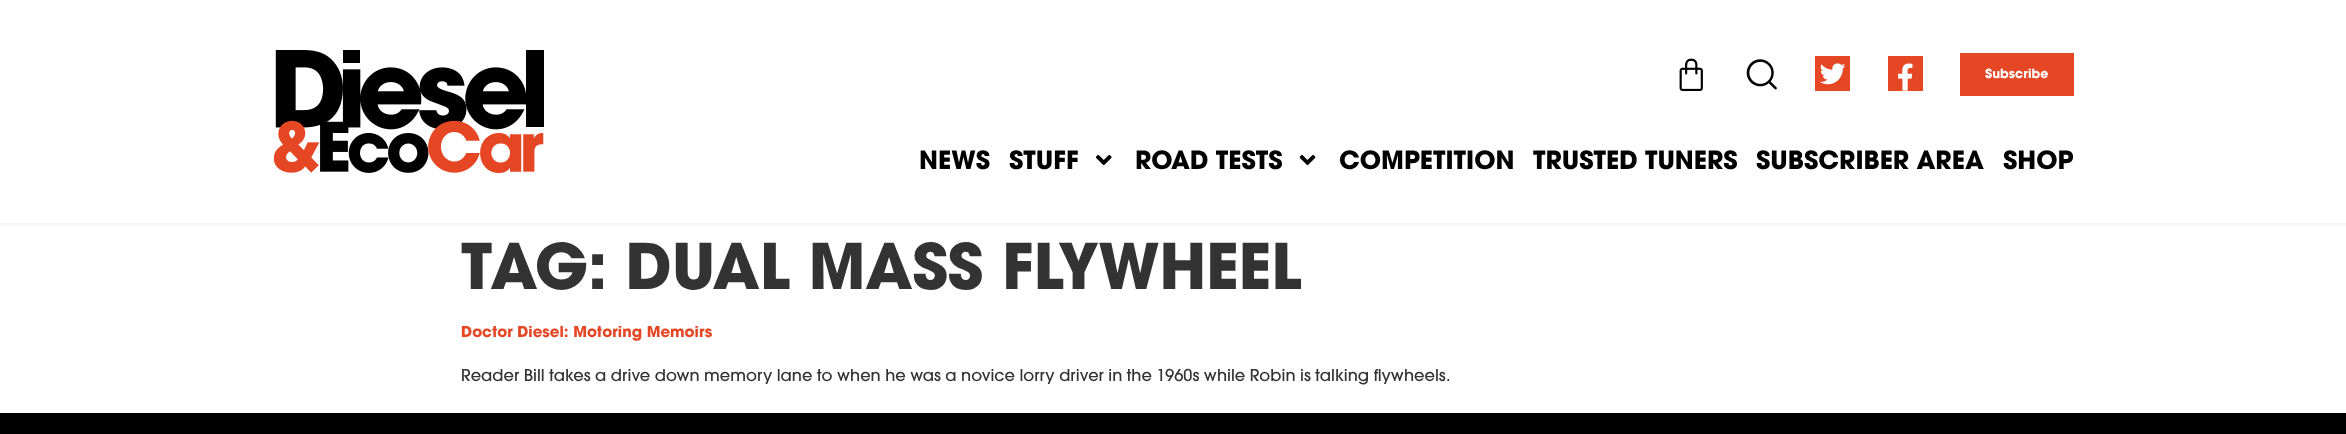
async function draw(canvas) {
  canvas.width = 2346;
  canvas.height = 434;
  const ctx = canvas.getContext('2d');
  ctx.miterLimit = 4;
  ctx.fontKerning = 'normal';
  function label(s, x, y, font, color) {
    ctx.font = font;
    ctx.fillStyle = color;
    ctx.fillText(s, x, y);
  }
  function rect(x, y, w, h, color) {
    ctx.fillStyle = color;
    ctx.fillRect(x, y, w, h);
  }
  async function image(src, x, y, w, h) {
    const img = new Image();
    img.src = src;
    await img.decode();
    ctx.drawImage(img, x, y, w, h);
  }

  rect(0, 0, 2346, 434, '#fff');
  rect(0, 223, 2346, 3, '#f8f8f8');
  await image('assets/img1.png', 274, 50, 270, 123);
  await image('assets/img2.png', 1679, 58, 24, 33);
  await image('assets/img3.png', 1746, 59, 31, 31);
  rect(1815, 56, 35, 35, '#e54624');
  await image('assets/img4.png', 1819, 63, 27, 22);
  rect(1888, 56, 35, 35, '#e54624');
  await image('assets/img5.png', 1898, 63, 15, 28);
  rect(1960, 53, 114, 43, '#e54624');
  label('Subscribe', 1985, 78, 'bold 12.5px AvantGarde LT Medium', '#fff');
  label('NEWS', 919, 169, 'bold 25px AvantGarde LT Medium', '#000');
  label('STUFF', 1009, 169, 'bold 25px AvantGarde LT Medium', '#000');
  await image('assets/img6.png', 1096, 155, 16, 10);
  label('ROAD TESTS', 1135, 169, 'bold 25px AvantGarde LT Medium', '#000');
  await image('assets/img7.png', 1299, 155, 17, 10);
  label('COMPETITION', 1339, 169, 'bold 25px AvantGarde LT Medium', '#000');
  label('TRUSTED TUNERS', 1533, 169, 'bold 25px AvantGarde LT Medium', '#000');
  label('SUBSCRIBER AREA', 1756, 169, 'bold 25px AvantGarde LT Medium', '#000');
  label('SHOP', 2003, 169, 'bold 25px AvantGarde LT Medium', '#000');
  ctx.letterSpacing = '-0.4px';
  label('TAG: DUAL MASS FLYWHEEL', 461, 289, 'bold 62.5px AvantGarde LT Medium', '#333');
  ctx.letterSpacing = '0px';
  label('Doctor Diesel: Motoring Memoirs', 461, 337, 'bold 15px AvantGarde LT Medium', '#e54624');
  label('Reader Bill takes a drive down memory lane to when he was a novice lorry driver in the 1960s while Robin is talking flywheels.', 461, 381, '500 16.25px AvantGarde LT Medium', '#333');
  rect(0, 413, 2346, 21, '#000');
}

draw(document.querySelector('canvas'));
